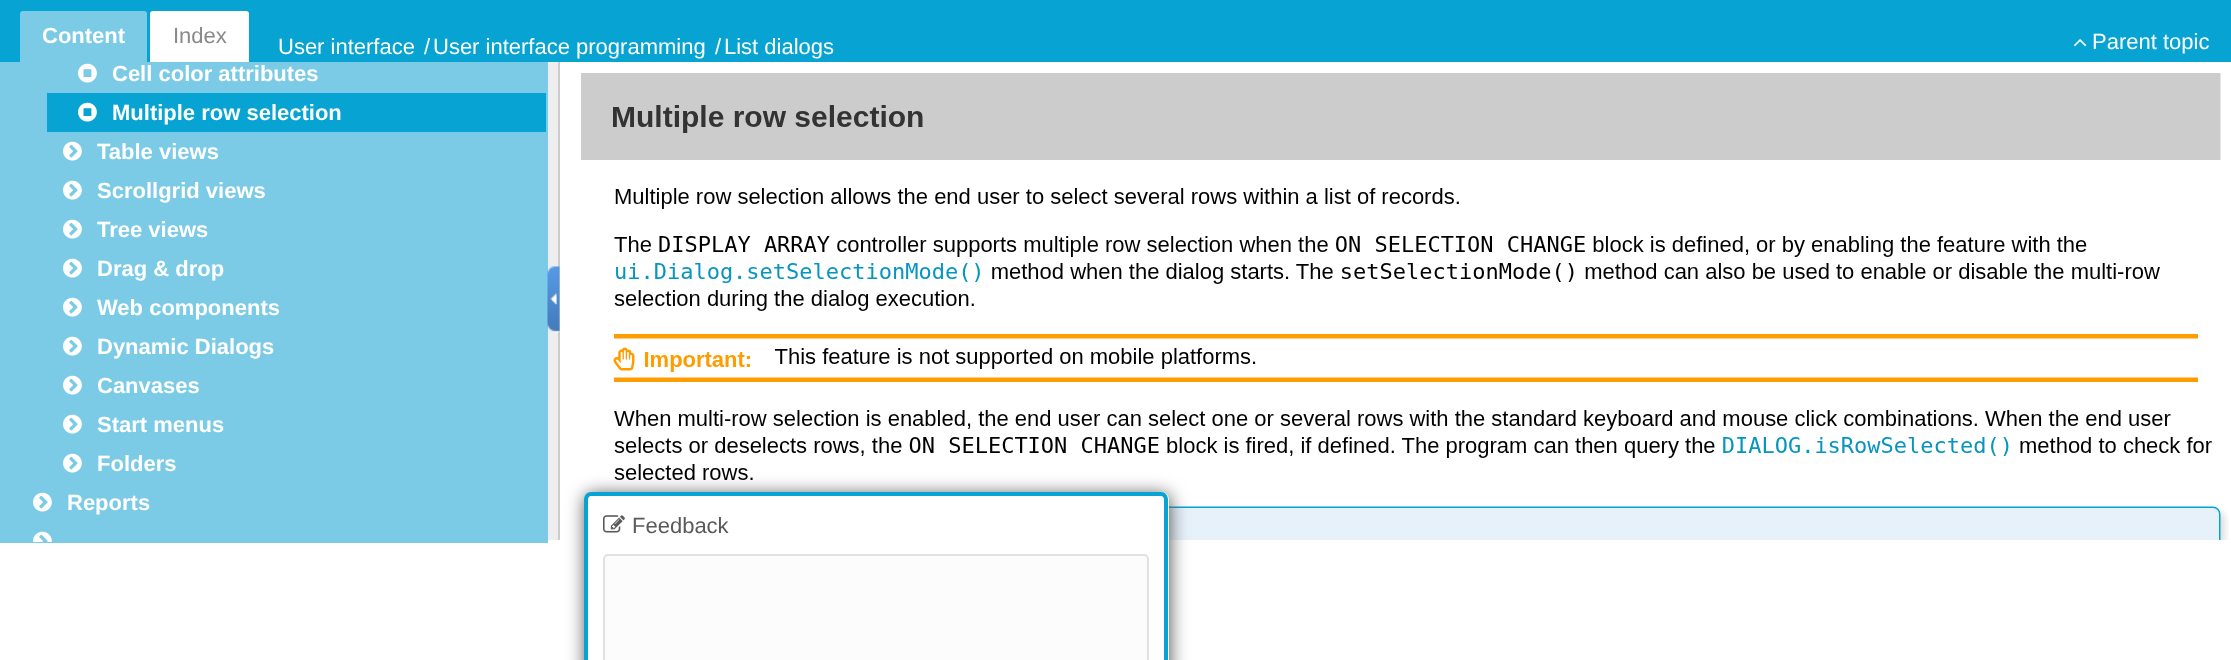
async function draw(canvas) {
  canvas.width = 2231;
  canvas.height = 660;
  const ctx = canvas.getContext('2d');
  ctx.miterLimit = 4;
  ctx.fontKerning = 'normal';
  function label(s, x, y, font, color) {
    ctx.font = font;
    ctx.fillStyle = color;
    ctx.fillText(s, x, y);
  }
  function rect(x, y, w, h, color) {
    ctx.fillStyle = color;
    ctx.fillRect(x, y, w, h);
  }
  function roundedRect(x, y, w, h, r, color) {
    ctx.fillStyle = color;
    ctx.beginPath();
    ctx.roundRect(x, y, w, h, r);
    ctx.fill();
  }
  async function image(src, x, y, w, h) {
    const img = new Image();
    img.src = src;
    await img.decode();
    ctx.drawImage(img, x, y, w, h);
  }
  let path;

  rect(0, 0, 2231, 660, '#fff');
  rect(0, 0, 2231, 62, '#07a4d3');
  ctx.fillStyle = '#7bcbe6';
  ctx.beginPath();
  ctx.roundRect(20, 11, 127, 51, [3, 3, 0, 0]);
  ctx.fill();
  label('Content', 42, 43, 'bold 22px Liberation Sans', '#fff');
  ctx.beginPath();
  ctx.roundRect(150, 11, 99, 51, [3, 3, 0, 0]);
  ctx.fill();
  label('Index', 173, 43, '22px Liberation Sans', '#898989');
  label('User interface', 278, 54, '22px Liberation Sans', '#fff');
  label('/', 424, 54, '22px Liberation Sans', '#fff');
  label('User interface programming', 433, 54, '22px Liberation Sans', '#fff');
  label('/', 715, 54, '22px Liberation Sans', '#fff');
  label('List dialogs', 724, 54, '22px Liberation Sans', '#fff');
  await image('assets/img1.png', 2074, 39, 13, 8);
  label('Parent topic', 2092, 49, '22px Liberation Sans', '#fff');
  rect(0, 62, 548, 481, '#7bcbe6');
  await image('assets/img2.png', 78, 63, 19, 20);
  label('Cell color attributes', 112, 81, 'bold 22px Liberation Sans', '#fff');
  rect(47, 93, 499, 39, '#07a4d3');
  await image('assets/img3.png', 78, 102, 19, 20);
  label('Multiple row selection', 112, 120, 'bold 22px Liberation Sans', '#fff');
  await image('assets/img4.png', 63, 141, 19, 20);
  label('Table views', 97, 159, 'bold 22px Liberation Sans', '#fff');
  await image('assets/img4.png', 63, 180, 19, 20);
  label('Scrollgrid views', 97, 198, 'bold 22px Liberation Sans', '#fff');
  await image('assets/img4.png', 63, 219, 19, 20);
  label('Tree views', 97, 237, 'bold 22px Liberation Sans', '#fff');
  await image('assets/img4.png', 63, 258, 19, 20);
  label('Drag & drop', 97, 276, 'bold 22px Liberation Sans', '#fff');
  await image('assets/img4.png', 63, 297, 19, 20);
  label('Web components', 97, 315, 'bold 22px Liberation Sans', '#fff');
  await image('assets/img4.png', 63, 336, 19, 20);
  label('Dynamic Dialogs', 97, 354, 'bold 22px Liberation Sans', '#fff');
  await image('assets/img4.png', 63, 375, 19, 20);
  label('Canvases', 97, 393, 'bold 22px Liberation Sans', '#fff');
  await image('assets/img4.png', 63, 414, 19, 20);
  label('Start menus', 97, 432, 'bold 22px Liberation Sans', '#fff');
  await image('assets/img4.png', 63, 453, 19, 20);
  label('Folders', 97, 471, 'bold 22px Liberation Sans', '#fff');
  await image('assets/img4.png', 33, 492, 19, 20);
  label('Reports', 67, 510, 'bold 22px Liberation Sans', '#fff');
  await image('assets/img5.png', 33, 531, 19, 11);
  rect(548, 62, 10, 478, '#eee');
  rect(558, 62, 2, 478, '#ccc');
  await image('assets/img6.png', 547, 266, 13, 67);
  await image('assets/img7.png', 581, 73, 1648, 467);
  ctx.fillStyle = '#555';
  ctx.filter = 'blur(9px)';
  ctx.beginPath();
  ctx.roundRect(585, 494, 585, 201, 8);
  ctx.fill();
  ctx.filter = 'none';
  roundedRect(584, 492, 585, 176, 8, '#fff');
  ctx.fillStyle = '#07a4d3';
  path = new Path2D('M591 492H1161C1165 492 1168 495 1168 500V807C1168 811 1165 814 1161 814H591C587 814 584 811 584 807V500C584 495 587 492 591 492ZM591 496H1161C1163 496 1164 498 1164 500V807C1164 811 1163 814 1161 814H591C589 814 588 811 588 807V500C588 498 589 496 591 496Z');
  ctx.fill(path, 'evenodd');
  await image('assets/img8.png', 603, 515, 22, 18);
  label('Feedback', 632, 533, '22px Liberation Sans', '#5b5a5b');
  ctx.fillStyle = '#fcfcfc';
  ctx.beginPath();
  ctx.roundRect(604, 555, 544, 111, 4);
  ctx.fill();
  ctx.strokeStyle = '#e1e1e1';
  ctx.lineWidth = 2;
  ctx.stroke();
}

draw(document.querySelector('canvas'));
